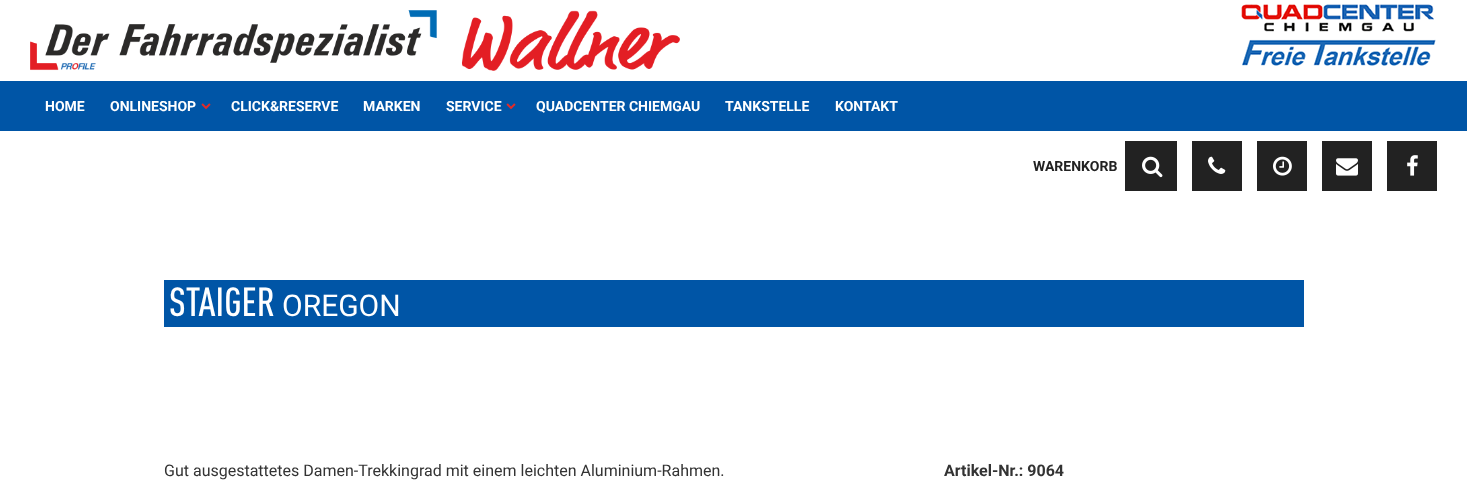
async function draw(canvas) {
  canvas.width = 1467;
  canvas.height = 484;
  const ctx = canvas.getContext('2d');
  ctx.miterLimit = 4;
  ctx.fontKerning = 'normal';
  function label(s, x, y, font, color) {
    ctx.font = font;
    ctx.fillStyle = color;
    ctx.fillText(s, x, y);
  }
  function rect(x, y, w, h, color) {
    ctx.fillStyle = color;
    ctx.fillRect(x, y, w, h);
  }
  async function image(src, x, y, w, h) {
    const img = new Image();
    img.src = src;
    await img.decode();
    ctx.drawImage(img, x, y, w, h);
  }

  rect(0, 0, 1467, 484, '#fff');
  await image('assets/img1.png', 30, 10, 650, 61);
  await image('assets/img2.png', 1241, 4, 193, 28);
  await image('assets/img3.png', 1242, 39, 194, 27);
  rect(0, 81, 1467, 50, '#0055a6');
  label('HOME', 45, 111, 'bold 14px Roboto', '#fff');
  label('ONLINESHOP', 110, 111, 'bold 14px Roboto', '#fff');
  await image('assets/img4.png', 201, 103, 10, 7);
  label('CLICK&RESERVE', 231, 111, 'bold 14px Roboto', '#fff');
  label('MARKEN', 363, 111, 'bold 14px Roboto', '#fff');
  label('SERVICE', 446, 111, 'bold 14px Roboto', '#fff');
  await image('assets/img4.png', 506, 103, 10, 7);
  label('QUADCENTER CHIEMGAU', 536, 111, 'bold 14px Roboto', '#fff');
  label('TANKSTELLE', 725, 111, 'bold 14px Roboto', '#fff');
  label('KONTAKT', 835, 111, 'bold 14px Roboto', '#fff');
  label('WARENKORB', 1033, 171, 'bold 14px Roboto', '#222');
  rect(1125, 141, 52, 50, '#222');
  await image('assets/img5.png', 1142, 156, 21, 22);
  rect(1192, 141, 50, 50, '#222');
  await image('assets/img6.png', 1208, 156, 18, 18);
  rect(1257, 141, 50, 50, '#222');
  await image('assets/img7.png', 1273, 156, 19, 20);
  rect(1322, 141, 50, 50, '#222');
  await image('assets/img8.png', 1336, 158, 22, 18);
  rect(1387, 141, 50, 50, '#222');
  await image('assets/img9.png', 1407, 155, 11, 21);
  rect(164, 280, 1140, 47, '#0055a6');
  label('STAIGER', 169, 316, '500 40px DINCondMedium', '#fff');
  label('OREGON', 282, 316, '30px Roboto', '#fff');
  label('Gut ausgestattetes Damen-Trekkingrad mit einem leichten Aluminium-Rahmen.', 164, 476, '16px Roboto', '#333');
  label('Artikel-Nr.: 9064', 944, 476, 'bold 16px Roboto', '#333');
}

draw(document.querySelector('canvas'));
